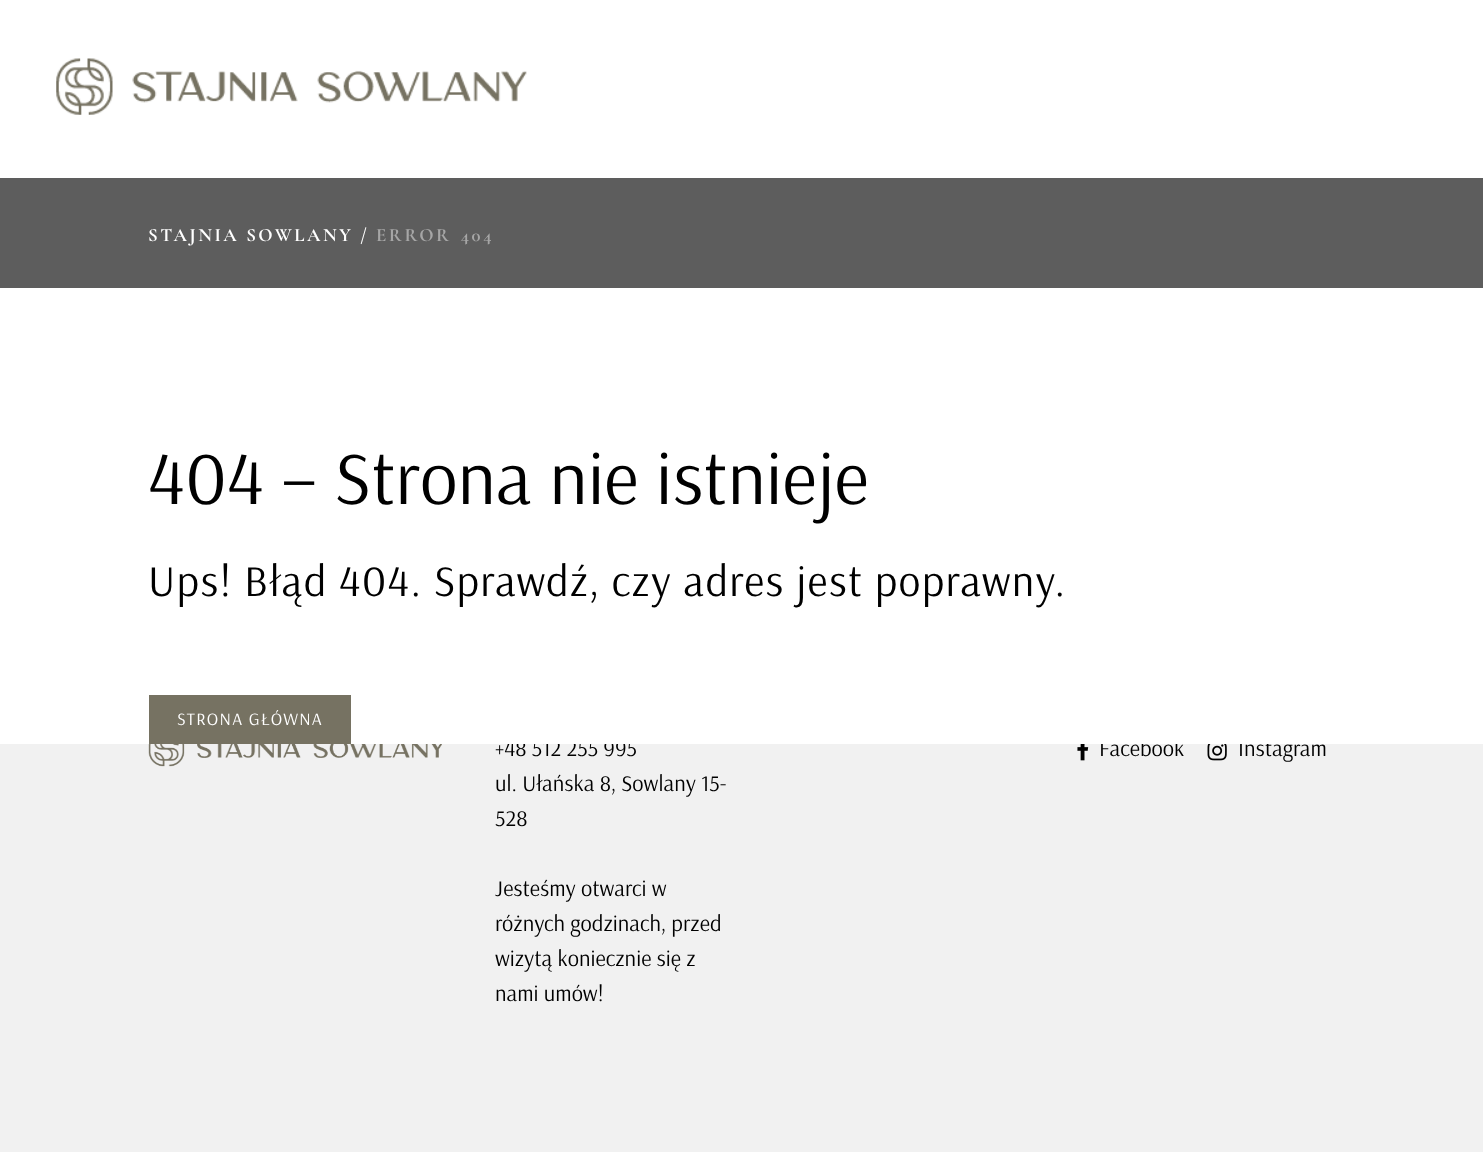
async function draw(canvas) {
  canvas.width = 1483;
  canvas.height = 1152;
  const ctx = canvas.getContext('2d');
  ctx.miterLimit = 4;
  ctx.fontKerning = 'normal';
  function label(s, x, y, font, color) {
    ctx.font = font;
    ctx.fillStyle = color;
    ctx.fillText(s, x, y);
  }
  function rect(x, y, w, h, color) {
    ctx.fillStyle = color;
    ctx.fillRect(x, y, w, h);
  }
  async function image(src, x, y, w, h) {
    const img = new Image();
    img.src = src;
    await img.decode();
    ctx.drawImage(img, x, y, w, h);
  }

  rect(0, 0, 1483, 1152, '#fff');
  await image('assets/img1.png', 56, 58, 471, 57);
  rect(0, 744, 1483, 408, '#f1f1f1');
  label('+48 512 255 995', 495, 756, '22.5px Arsenal', '#000');
  label('Facebook', 1099, 756, '22.5px Arsenal', '#000');
  label('Instagram', 1238, 756, '22.5px Arsenal', '#000');
  rect(507, 739, 762, 5, '#fff');
  rect(0, 178, 1483, 110, '#5d5d5d');
  ctx.letterSpacing = '2.5px';
  label('STAJNIA SOWLANY /', 148, 241, 'bold 18.75px Cormorant Garamond', '#fff');
  ctx.wordSpacing = '2px';
  label('ERROR 404', 376, 241, 'bold 18.75px Cormorant Garamond', '#a6a6a6');
  ctx.letterSpacing = '0px';
  ctx.wordSpacing = '0px';
  label('404 – Strona nie istnieje', 148, 504, '75px Arsenal', '#000');
  ctx.letterSpacing = '1.25px';
  label('Ups! Błąd 404. Sprawdź, czy adres jest poprawny.', 148, 596, '43.75px Arsenal', '#000');
  rect(149, 695, 202, 49, '#767262');
  label('STRONA GŁÓWNA', 177, 725, '17.5px Arsenal', '#fff');
  await image('assets/img2.png', 148, 744, 294, 23);
  ctx.letterSpacing = '0px';
  label('ul. Ułańska 8, Sowlany 15-', 495, 791, '22.5px Arsenal', '#000');
  label('528', 495, 826, '22.5px Arsenal', '#000');
  label('Jesteśmy otwarci w', 495, 896, '22.5px Arsenal', '#000');
  label('różnych godzinach, przed', 495, 931, '22.5px Arsenal', '#000');
  label('wizytą koniecznie się z', 495, 966, '22.5px Arsenal', '#000');
  label('nami umów!', 495, 1001, '22.5px Arsenal', '#000');
  await image('assets/img3.png', 1077, 744, 12, 17);
  await image('assets/img4.png', 1207, 744, 20, 17);
}

draw(document.querySelector('canvas'));
